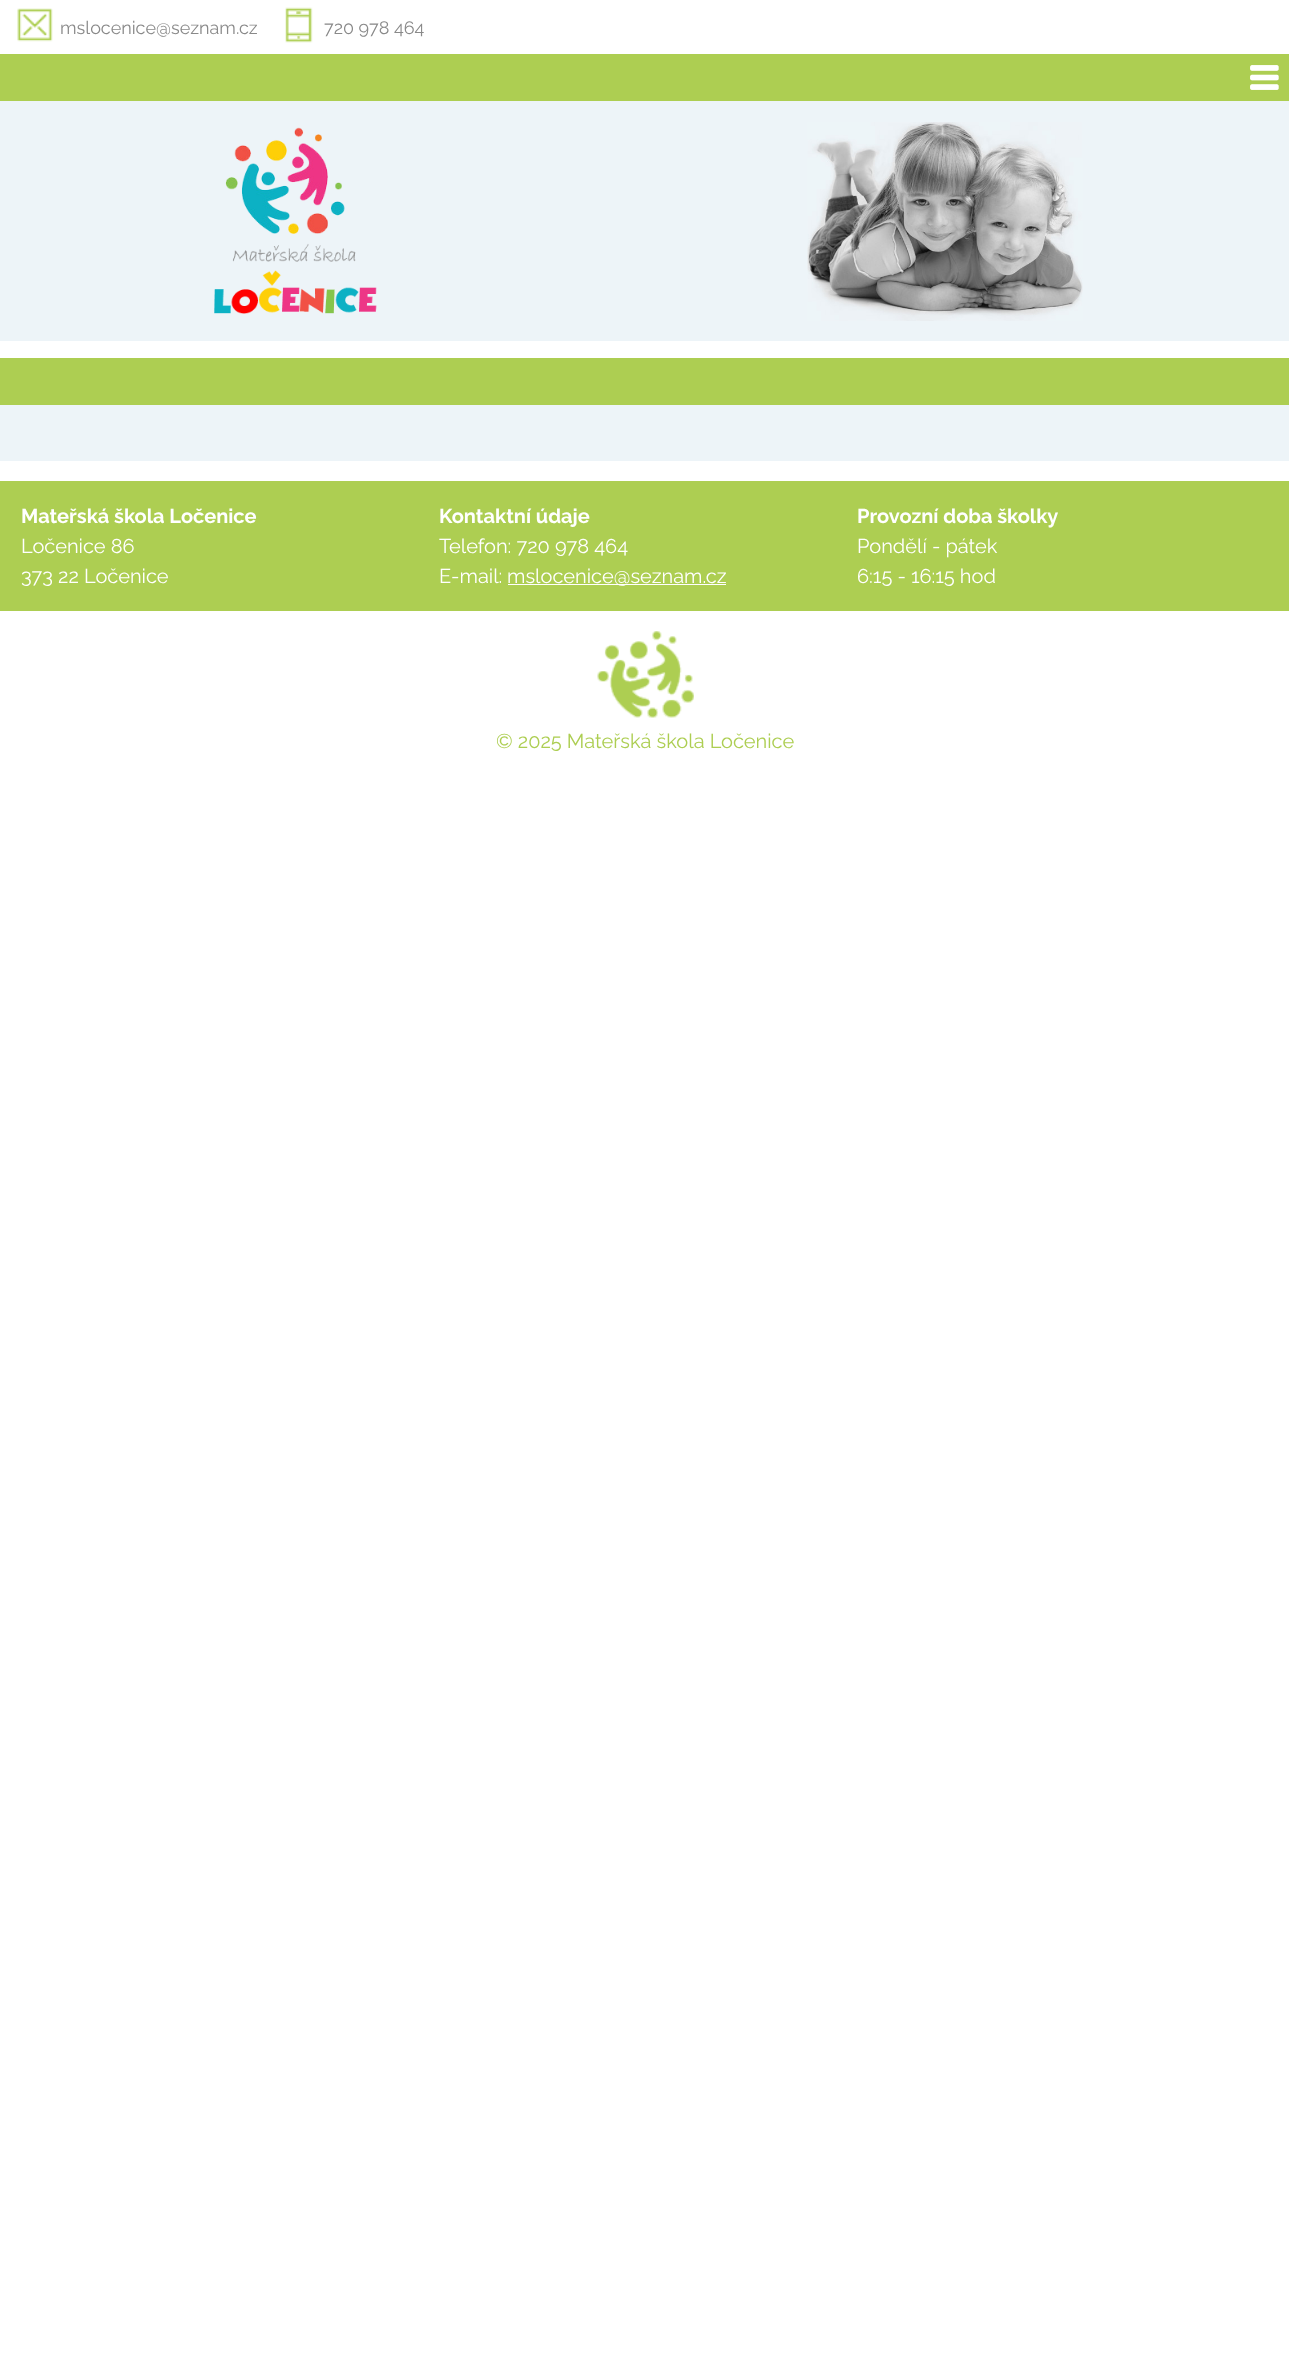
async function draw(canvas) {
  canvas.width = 1289;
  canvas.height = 2371;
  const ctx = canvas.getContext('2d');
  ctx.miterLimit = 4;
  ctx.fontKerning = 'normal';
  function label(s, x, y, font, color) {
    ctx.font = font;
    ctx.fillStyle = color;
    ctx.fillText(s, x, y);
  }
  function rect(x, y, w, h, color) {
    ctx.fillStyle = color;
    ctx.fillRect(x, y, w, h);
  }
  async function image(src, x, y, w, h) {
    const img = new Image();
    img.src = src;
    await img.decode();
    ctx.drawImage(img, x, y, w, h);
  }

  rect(0, 0, 1289, 2371, '#fff');
  await image('assets/img1.png', 17, 8, 36, 34);
  label('mslocenice@seznam.cz', 60, 34, '18px Raleway', '#898989');
  await image('assets/img2.png', 285, 7, 28, 36);
  label('720 978 464', 324, 34, '18px Raleway', '#898989');
  rect(0, 54, 1289, 47, '#adce52');
  await image('assets/img3.png', 1250, 65, 29, 25);
  rect(0, 101, 1289, 240, '#edf4f8');
  await image('assets/img4.png', 214, 127, 163, 187);
  await image('assets/img5.png', 807, 122, 276, 199);
  rect(0, 405, 1289, 56, '#edf4f8');
  rect(0, 358, 1289, 47, '#adce52');
  rect(0, 481, 1289, 130, '#adce52');
  label('Mateřská škola Ločenice', 21, 523, 'bold 20px Raleway', '#fff');
  label('Ločenice 86', 21, 553, '20px Raleway', '#fff');
  label('373 22 Ločenice', 21, 583, '20px Raleway', '#fff');
  label('Kontaktní údaje', 439, 523, 'bold 20px Raleway', '#fff');
  label('Telefon: 720 978 464', 439, 553, '20px Raleway', '#fff');
  label('E-mail:', 439, 583, '20px Raleway', '#fff');
  rect(508, 584, 218, 1, '#fff');
  label('mslocenice@seznam.cz', 507, 583, '20px Raleway', '#fff');
  label('Provozní doba školky', 857, 523, 'bold 20px Raleway', '#fff');
  label('Pondělí - pátek', 857, 553, '20px Raleway', '#fff');
  label('6:15 - 16:15 hod', 857, 583, '20px Raleway', '#fff');
  await image('assets/img6.png', 597, 631, 97, 87);
  label('© 2025 Mateřská škola Ločenice', 496, 748, '20px Raleway', '#adce52');
}

draw(document.querySelector('canvas'));
